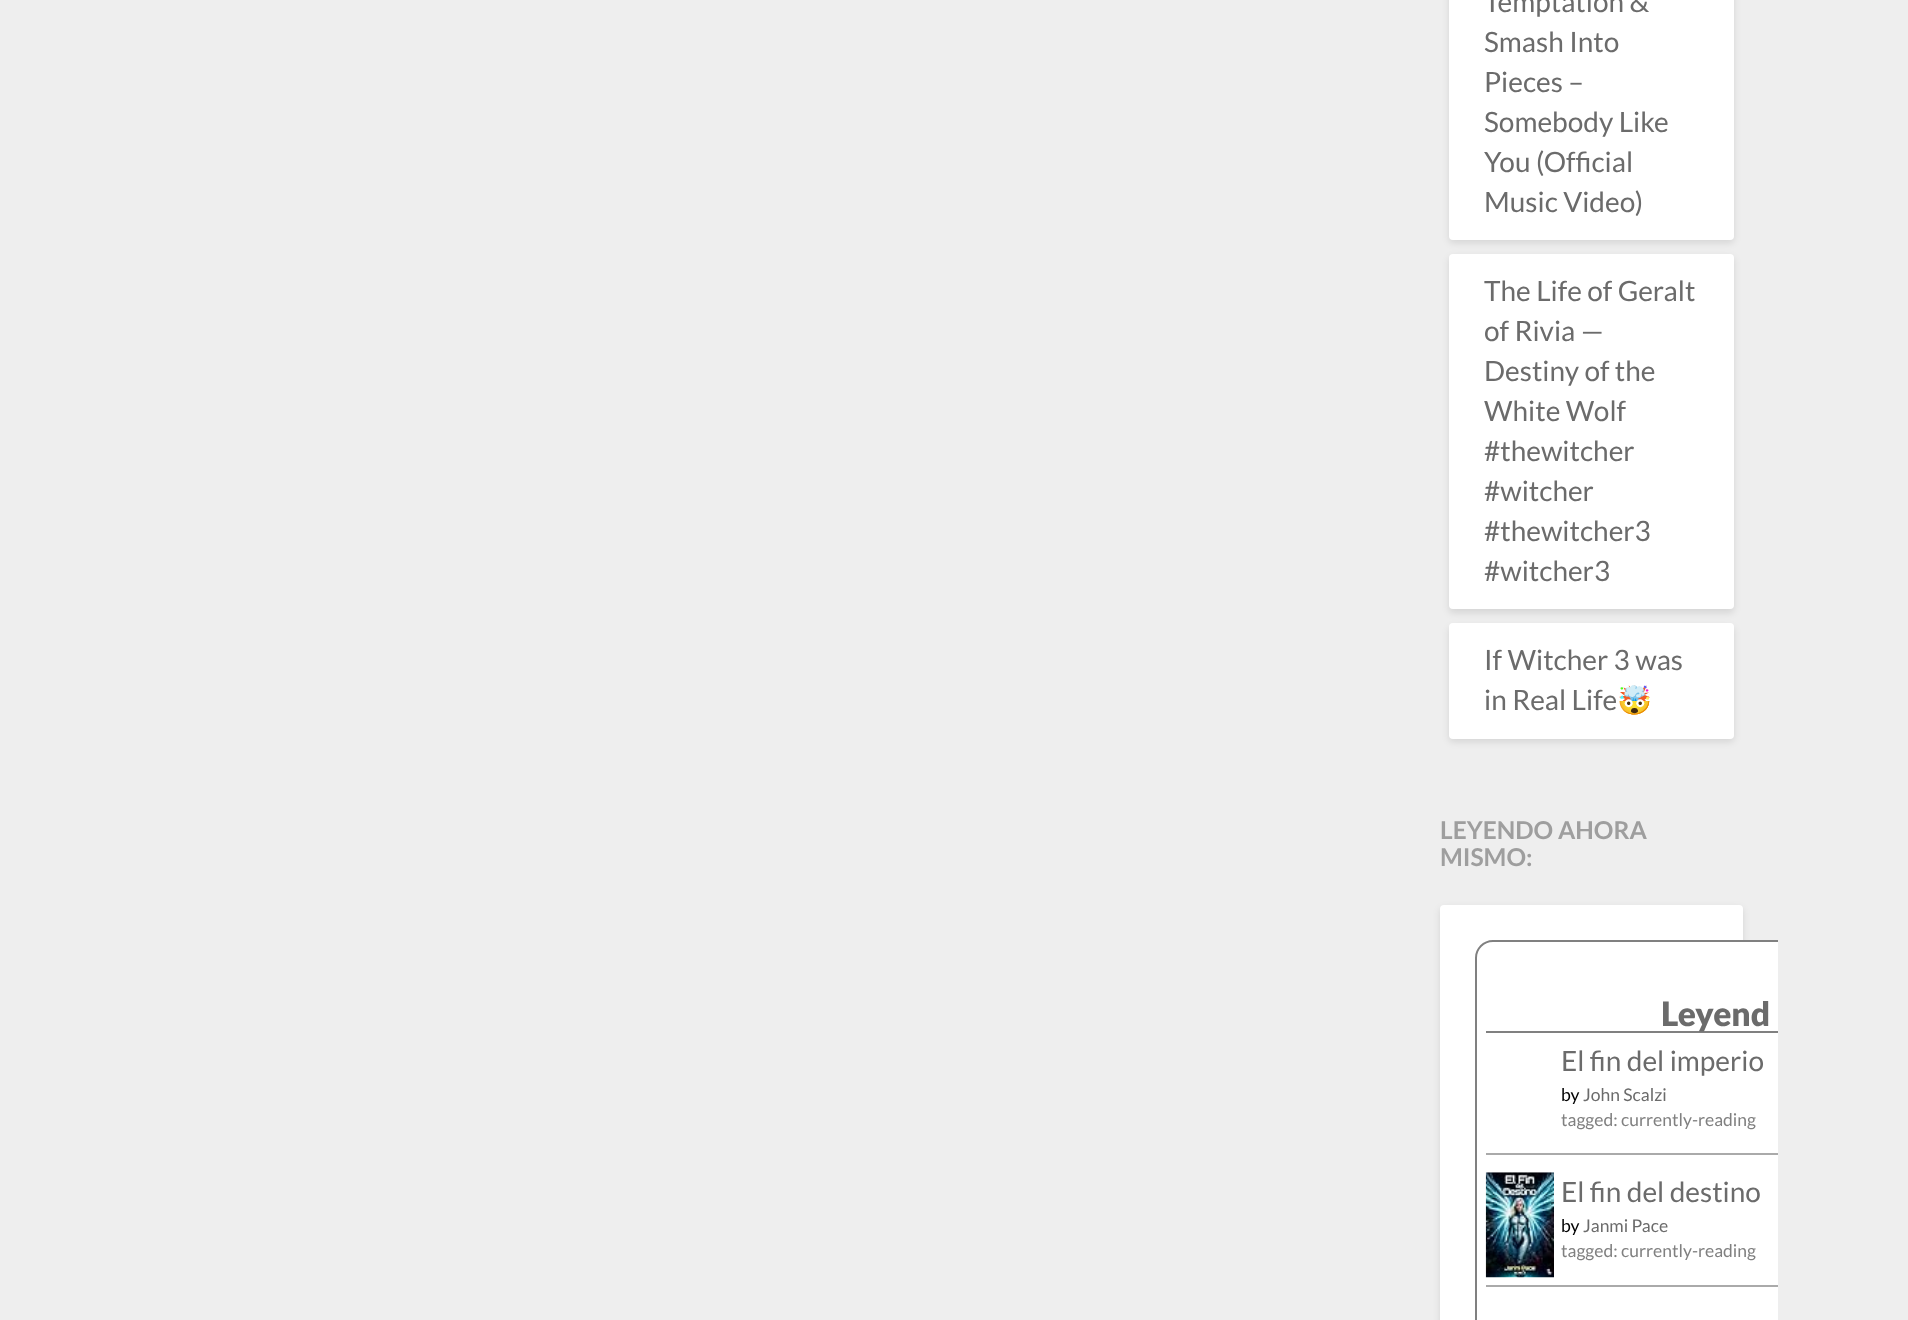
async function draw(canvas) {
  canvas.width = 1908;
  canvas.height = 1320;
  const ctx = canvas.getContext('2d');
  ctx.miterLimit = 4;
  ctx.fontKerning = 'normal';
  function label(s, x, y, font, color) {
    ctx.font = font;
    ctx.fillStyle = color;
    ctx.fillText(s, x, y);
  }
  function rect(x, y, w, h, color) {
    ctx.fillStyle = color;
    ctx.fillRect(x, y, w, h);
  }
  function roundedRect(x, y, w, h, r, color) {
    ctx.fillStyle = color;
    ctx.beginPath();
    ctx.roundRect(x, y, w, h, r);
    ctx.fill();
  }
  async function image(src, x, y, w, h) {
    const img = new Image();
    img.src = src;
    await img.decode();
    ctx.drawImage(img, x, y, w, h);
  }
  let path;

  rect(0, 0, 1908, 1320, '#eee');
  ctx.fillStyle = '#0000001a';
  ctx.filter = 'blur(3.5px)';
  ctx.beginPath();
  ctx.roundRect(1449, -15, 285, 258, 4);
  ctx.fill();
  ctx.filter = 'none';
  roundedRect(1449, -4, 285, 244, 4, '#fff');
  label('Temptation &', 1484, 12, '28px Lato', '#6b6b6b');
  label('Smash Into', 1484, 52, '28px Lato', '#6b6b6b');
  label('Pieces –', 1484, 92, '28px Lato', '#6b6b6b');
  label('Somebody Like', 1484, 132, '28px Lato', '#6b6b6b');
  label('You (Official', 1484, 172, '28px Lato', '#6b6b6b');
  label('Music Video)', 1484, 212, '28px Lato', '#6b6b6b');
  ctx.fillStyle = '#0000001a';
  ctx.filter = 'blur(3.5px)';
  ctx.beginPath();
  ctx.roundRect(1449, 257, 285, 356, 4);
  ctx.fill();
  ctx.filter = 'none';
  roundedRect(1449, 254, 285, 355, 4, '#fff');
  label('The Life of Geralt', 1484, 301, '28px Lato', '#6b6b6b');
  label('of Rivia —', 1484, 341, '28px Lato', '#6b6b6b');
  label('Destiny of the', 1484, 381, '28px Lato', '#6b6b6b');
  label('White Wolf', 1484, 421, '28px Lato', '#6b6b6b');
  label('#thewitcher', 1484, 461, '28px Lato', '#6b6b6b');
  label('#witcher', 1484, 501, '28px Lato', '#6b6b6b');
  label('#thewitcher3', 1484, 541, '28px Lato', '#6b6b6b');
  label('#witcher3', 1484, 581, '28px Lato', '#6b6b6b');
  ctx.fillStyle = '#0000001a';
  ctx.filter = 'blur(3.5px)';
  ctx.beginPath();
  ctx.roundRect(1449, 627, 285, 115, 4);
  ctx.fill();
  ctx.filter = 'none';
  roundedRect(1449, 623, 285, 116, 4, '#fff');
  label('If Witcher 3 was', 1484, 670, '28px Lato', '#6b6b6b');
  label('in Real Life', 1484, 710, '28px Lato', '#6b6b6b');
  label('🤯', 1617, 710, '28px Noto Color Emoji', '#6b6b6b');
  label('LEYENDO AHORA', 1440, 839, 'bold 24.5px Lato', '#9e9e9e');
  label('MISMO:', 1440, 866, 'bold 24.5px Lato', '#9e9e9e');
  ctx.fillStyle = '#0000001a';
  ctx.filter = 'blur(3.5px)';
  ctx.beginPath();
  ctx.roundRect(1440, 908, 303, 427, 4);
  ctx.fill();
  ctx.filter = 'none';
  roundedRect(1440, 905, 303, 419, 4, '#fff');
  path = new Path2D('M1493 940H1778V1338H1493C1483 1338 1475 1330 1475 1320V958C1475 948 1483 940 1493 940Z');
  ctx.fill(path);
  ctx.fillStyle = '#808080';
  path = new Path2D('M1493 940C1483 940 1475 948 1475 958V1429C1475 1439 1483 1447 1493 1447H1778V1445H1493C1484 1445 1477 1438 1477 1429V958C1477 949 1484 942 1493 942H1778V940Z');
  ctx.fill(path);
  rect(1486, 1031, 292, 2, '#808080');
  label('Leyend', 1661, 1026, '900 33.5px Lato', '#6b6b6b');
  rect(1486, 1153, 292, 2, '#aaa');
  label('El fin del imperio', 1561, 1071, '28px Lato', '#6b6b6b');
  label('by', 1561, 1101, '17.5px Lato', '#000');
  label('John Scalzi', 1583, 1101, '17.5px Lato', '#6b6b6b');
  label('tagged: currently-reading', 1561, 1126, '17.5px Lato', '#808080');
  rect(1486, 1285, 292, 2, '#aaa');
  await image('assets/img1.png', 1485, 1172, 69, 106);
  label('El fin del destino', 1561, 1202, '28px Lato', '#6b6b6b');
  label('by', 1561, 1232, '17.5px Lato', '#000');
  label('Janmi Pace', 1583, 1232, '17.5px Lato', '#6b6b6b');
  label('tagged: currently-reading', 1561, 1257, '17.5px Lato', '#808080');
}

draw(document.querySelector('canvas'));
